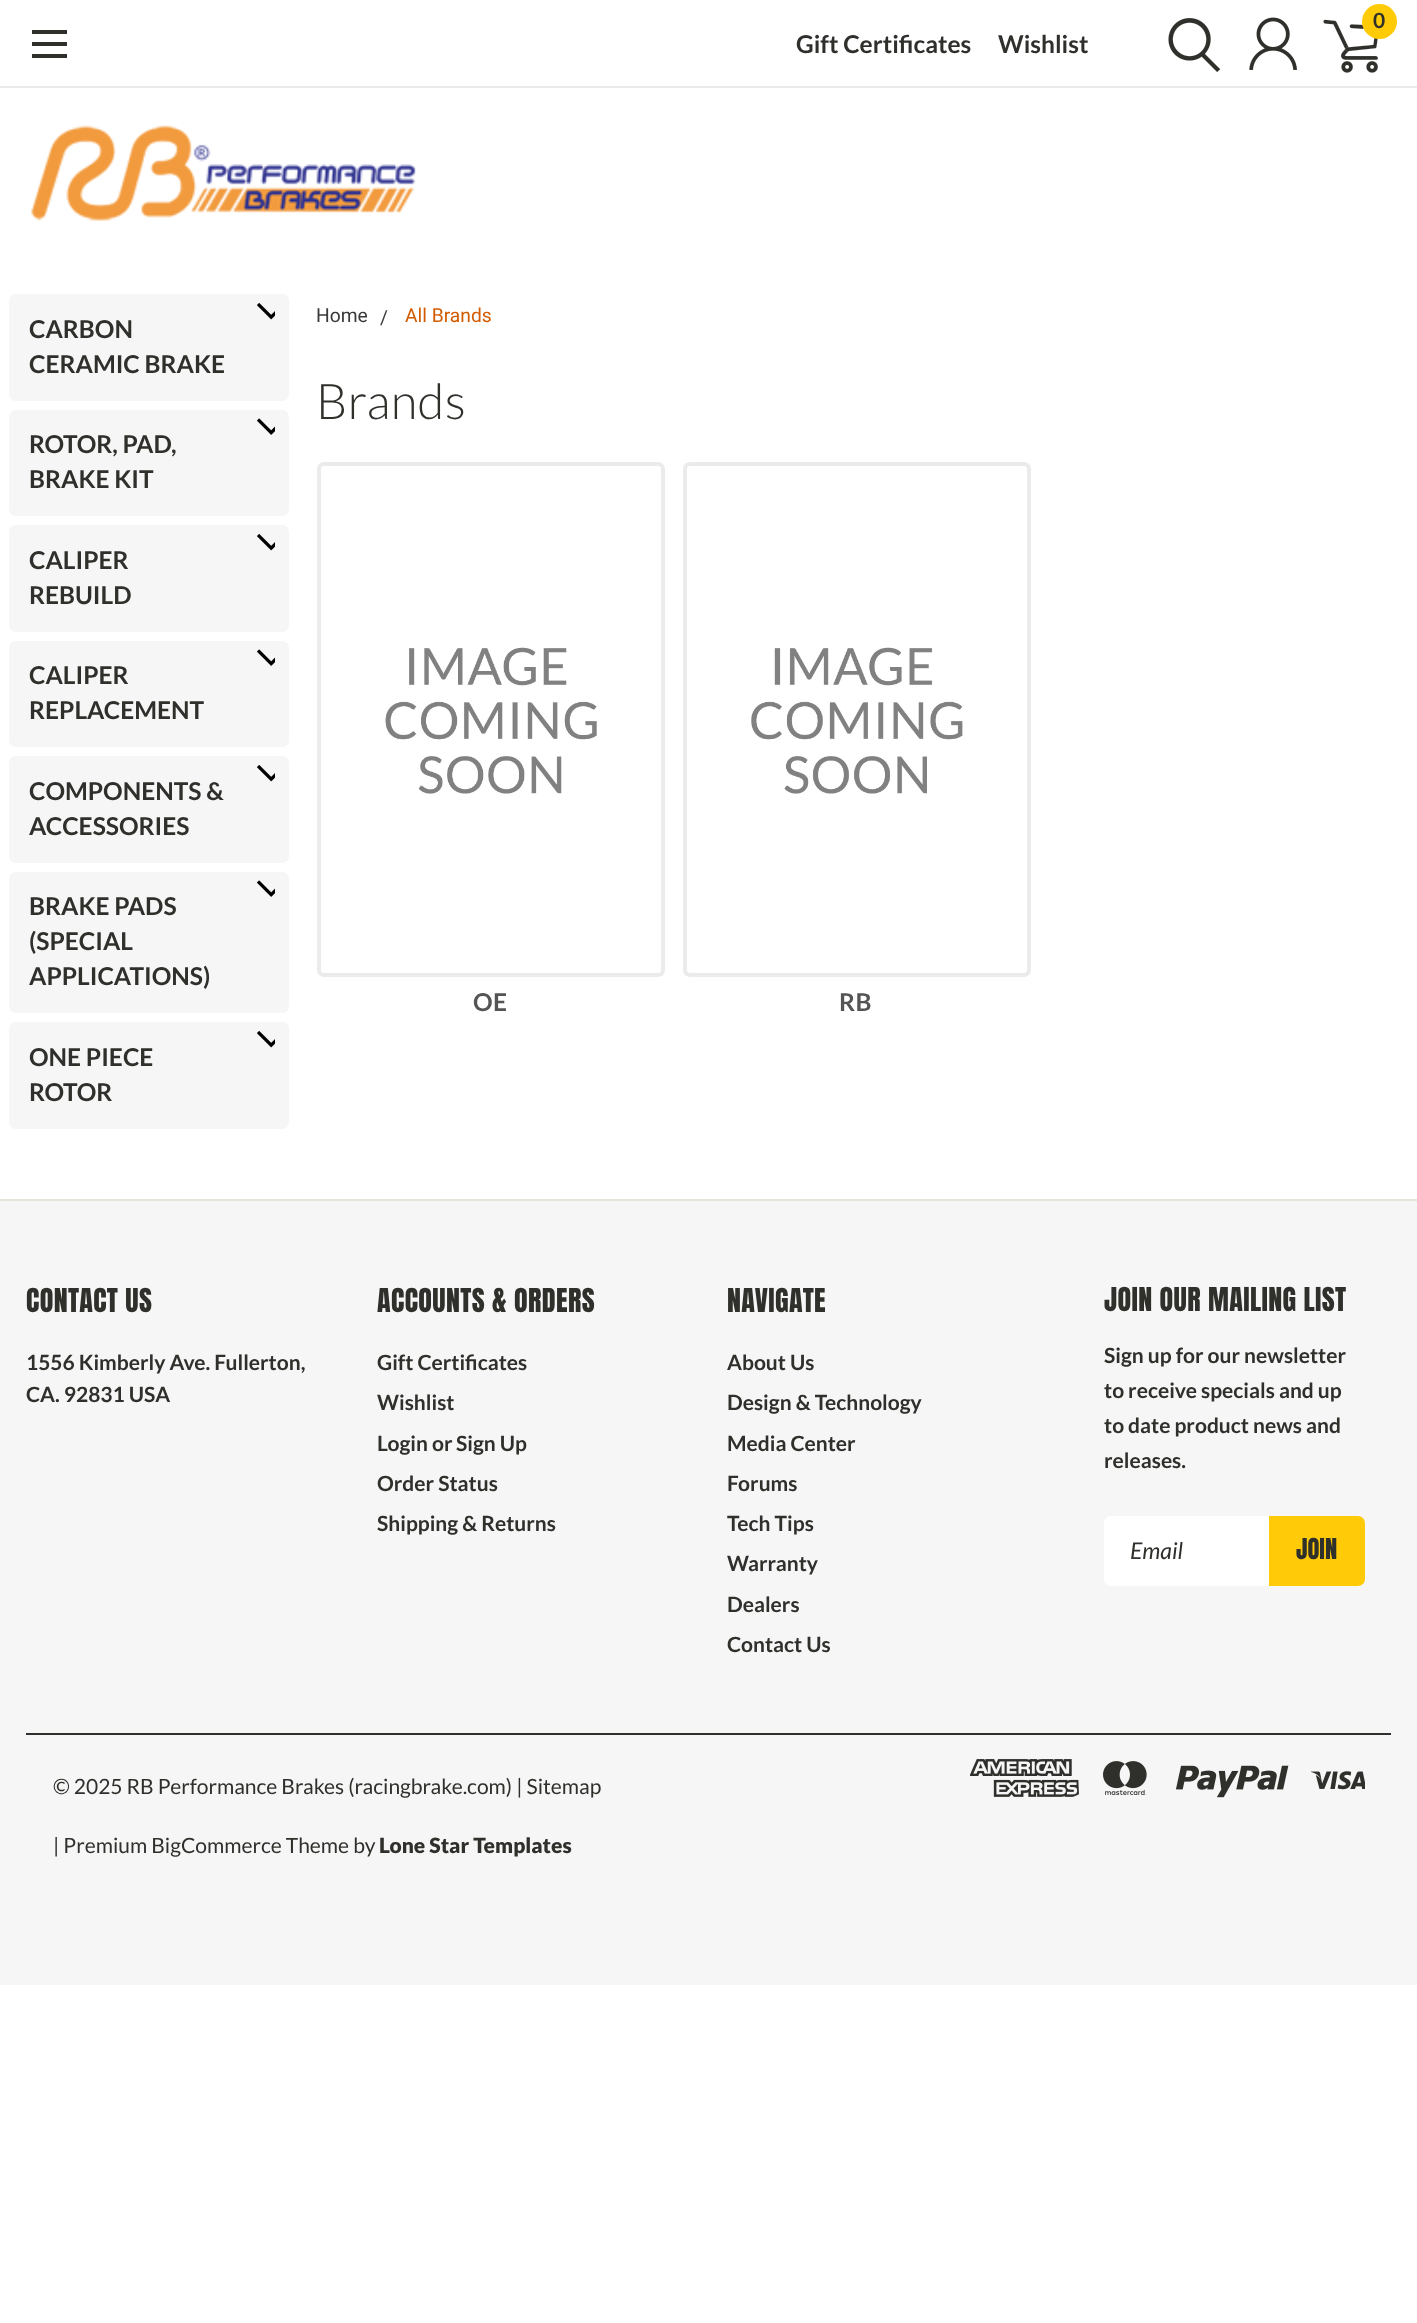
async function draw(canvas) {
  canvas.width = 1417;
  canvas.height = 2323;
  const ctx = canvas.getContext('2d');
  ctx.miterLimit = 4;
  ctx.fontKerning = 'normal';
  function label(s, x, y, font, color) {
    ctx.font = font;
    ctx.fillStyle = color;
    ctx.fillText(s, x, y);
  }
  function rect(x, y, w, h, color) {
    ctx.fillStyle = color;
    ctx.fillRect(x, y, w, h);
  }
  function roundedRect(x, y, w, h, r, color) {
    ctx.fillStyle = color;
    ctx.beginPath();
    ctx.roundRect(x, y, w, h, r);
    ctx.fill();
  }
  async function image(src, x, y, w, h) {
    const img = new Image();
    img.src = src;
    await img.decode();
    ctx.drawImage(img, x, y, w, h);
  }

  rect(0, 0, 1417, 2323, '#fff');
  rect(0, 86, 1417, 2, '#ebebeb');
  await image('assets/img1.png', 1168, 18, 53, 55);
  await image('assets/img2.png', 1249, 17, 48, 53);
  await image('assets/img3.png', 1323, 19, 55, 54);
  ctx.fillStyle = '#ffcb07';
  ctx.beginPath();
  ctx.arc(1379.5, 21.5, 17.5, 0, 2 * Math.PI);
  ctx.fill();
  label('0', 1373, 28, 'bold 21px Lato', '#2f2f2b');
  rect(32, 42, 35, 4, '#2f2f2b');
  rect(32, 30, 35, 4, '#2f2f2b');
  rect(32, 54, 35, 4, '#2f2f2b');
  label('Gift Certificates', 796, 53, 'bold 24.5px Lato', '#2f2f2b');
  label('Wishlist', 998, 53, 'bold 24.5px Lato', '#2f2f2b');
  await image('assets/img4.png', 31, 125, 385, 96);
  roundedRect(9, 294, 280, 107, 7, '#f6f6f6');
  await image('assets/img5.png', 257, 303, 18, 17);
  label('CARBON', 29, 338, 'bold 24.5px Lato', '#2f2f2b');
  label('CERAMIC BRAKE', 29, 373, 'bold 24.5px Lato', '#2f2f2b');
  roundedRect(9, 410, 280, 106, 7, '#f6f6f6');
  await image('assets/img6.png', 257, 418, 18, 17);
  label('ROTOR, PAD,', 29, 453, 'bold 24.5px Lato', '#2f2f2b');
  label('BRAKE KIT', 29, 488, 'bold 24.5px Lato', '#2f2f2b');
  roundedRect(9, 525, 280, 107, 7, '#f6f6f6');
  await image('assets/img5.png', 257, 534, 18, 17);
  label('CALIPER', 29, 569, 'bold 24.5px Lato', '#2f2f2b');
  label('REBUILD', 29, 604, 'bold 24.5px Lato', '#2f2f2b');
  roundedRect(9, 641, 280, 106, 7, '#f6f6f6');
  await image('assets/img6.png', 257, 649, 18, 17);
  label('CALIPER', 29, 684, 'bold 24.5px Lato', '#2f2f2b');
  label('REPLACEMENT', 29, 719, 'bold 24.5px Lato', '#2f2f2b');
  roundedRect(9, 756, 280, 107, 7, '#f6f6f6');
  await image('assets/img5.png', 257, 765, 18, 17);
  label('COMPONENTS &', 29, 800, 'bold 24.5px Lato', '#2f2f2b');
  label('ACCESSORIES', 29, 835, 'bold 24.5px Lato', '#2f2f2b');
  roundedRect(9, 872, 280, 141, 7, '#f6f6f6');
  await image('assets/img6.png', 257, 880, 18, 17);
  label('BRAKE PADS', 29, 915, 'bold 24.5px Lato', '#2f2f2b');
  label('(SPECIAL', 29, 950, 'bold 24.5px Lato', '#2f2f2b');
  label('APPLICATIONS)', 29, 985, 'bold 24.5px Lato', '#2f2f2b');
  roundedRect(9, 1022, 280, 107, 7, '#f6f6f6');
  await image('assets/img5.png', 257, 1031, 18, 17);
  label('ONE PIECE', 29, 1066, 'bold 24.5px Lato', '#2f2f2b');
  label('ROTOR', 29, 1101, 'bold 24.5px Lato', '#2f2f2b');
  label('Home', 316, 322, '19.25px Roboto', '#393939');
  label('/', 380, 324, '19.25px Roboto', '#393939');
  label('All Brands', 405, 322, '19.25px Roboto', '#d25b00');
  ctx.letterSpacing = '0.4px';
  label('Brands', 316, 419, '300 49px Lato', '#2f2f2b');
  ctx.beginPath();
  ctx.roundRect(319, 464, 344, 511, 5);
  ctx.strokeStyle = '#ebebeb';
  ctx.lineWidth = 4;
  ctx.stroke();
  await image('assets/img7.png', 385, 647, 212, 147);
  label('OE', 473, 1011, 'bold 24.5px Lato', '#545454');
  ctx.beginPath();
  ctx.roundRect(685, 464, 344, 511, 5);
  ctx.stroke();
  await image('assets/img8.png', 751, 647, 212, 147);
  label('RB', 839, 1011, 'bold 24.5px Lato', '#545454');
  rect(0, 1201, 1417, 784, '#f6f6f6');
  rect(0, 1199, 1417, 2, '#e4e5d7');
  label('CONTACT US', 26, 1312, '28px Anton', '#2f2f2b');
  ctx.letterSpacing = '0px';
  label('1556 Kimberly Ave. Fullerton,', 26, 1370, 'bold 21px Lato', '#2f2f2b');
  label('CA. 92831 USA', 26, 1402, 'bold 21px Lato', '#2f2f2b');
  ctx.letterSpacing = '0.4px';
  label('ACCOUNTS & ORDERS', 377, 1312, '28px Anton', '#2f2f2b');
  ctx.letterSpacing = '0px';
  label('Gift Certificates', 377, 1370, 'bold 21px Lato', '#2f2f2b');
  label('Wishlist', 377, 1410, 'bold 21px Lato', '#2f2f2b');
  label('Login or', 377, 1451, 'bold 21px Lato', '#2f2f2b');
  label('Sign Up', 456, 1451, 'bold 21px Lato', '#2f2f2b');
  label('Order Status', 377, 1491, 'bold 21px Lato', '#2f2f2b');
  label('Shipping & Returns', 377, 1531, 'bold 21px Lato', '#2f2f2b');
  ctx.letterSpacing = '0.4px';
  label('NAVIGATE', 727, 1312, '28px Anton', '#2f2f2b');
  ctx.letterSpacing = '0px';
  label('About Us', 727, 1370, 'bold 21px Lato', '#2f2f2b');
  label('Design & Technology', 727, 1410, 'bold 21px Lato', '#2f2f2b');
  label('Media Center', 727, 1451, 'bold 21px Lato', '#2f2f2b');
  label('Forums', 727, 1491, 'bold 21px Lato', '#2f2f2b');
  label('Tech Tips', 727, 1531, 'bold 21px Lato', '#2f2f2b');
  label('Warranty', 727, 1571, 'bold 21px Lato', '#2f2f2b');
  label('Dealers', 727, 1612, 'bold 21px Lato', '#2f2f2b');
  label('Contact Us', 727, 1652, 'bold 21px Lato', '#2f2f2b');
  ctx.letterSpacing = '0.4px';
  label('JOIN OUR MAILING LIST', 1104, 1311, '28px Anton', '#2f2f2b');
  ctx.letterSpacing = '0px';
  label('Sign up for our newsletter', 1104, 1363, 'bold 21px Lato', '#2f2f2b');
  label('to receive specials and up', 1104, 1398, 'bold 21px Lato', '#2f2f2b');
  label('to date product news and', 1104, 1433, 'bold 21px Lato', '#2f2f2b');
  label('releases.', 1104, 1468, 'bold 21px Lato', '#2f2f2b');
  ctx.fillStyle = '#fff';
  ctx.beginPath();
  ctx.roundRect(1104, 1516, 165, 70, [7, 0, 0, 7]);
  ctx.fill();
  label('Email', 1130, 1559, 'italic 23px Lato', '#2f2f2b');
  ctx.fillStyle = '#ffca07';
  ctx.beginPath();
  ctx.roundRect(1270, 1517, 94, 68, [0, 6, 6, 0]);
  ctx.fill();
  ctx.strokeStyle = '#ffca07';
  ctx.lineWidth = 2;
  ctx.stroke();
  label('JOIN', 1296, 1559, '24.5px Anton', '#2f2f2b');
  rect(26, 1733, 1365, 2, '#2f2f2b');
  label('© 2025 RB Performance Brakes (racingbrake.com) | Sitemap', 53, 1794, '21px Lato', '#2f2f2b');
  label('| Premium BigCommerce Theme by', 53, 1853, '21px Lato', '#2f2f2b');
  label('Lone Star Templates', 379, 1853, '900 21px Lato', '#2f2f2b');
  await image('assets/img9.png', 970, 1759, 109, 38);
  await image('assets/img10.png', 1103, 1761, 44, 34);
  await image('assets/img11.png', 1176, 1765, 113, 33);
  await image('assets/img12.png', 1311, 1771, 54, 19);
}

draw(document.querySelector('canvas'));
